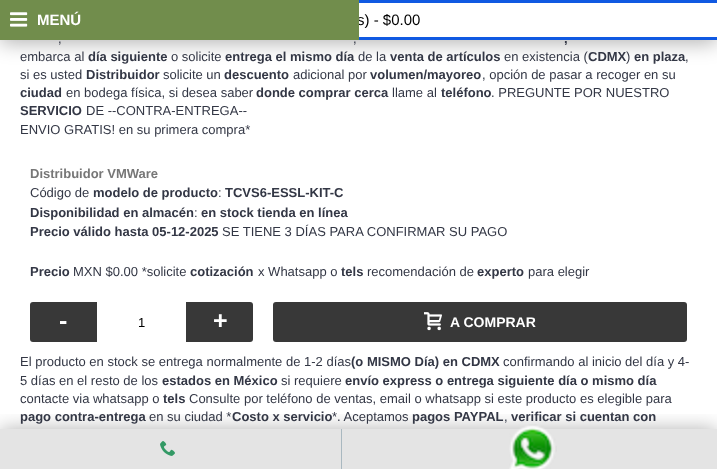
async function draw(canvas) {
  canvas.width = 717;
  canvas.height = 469;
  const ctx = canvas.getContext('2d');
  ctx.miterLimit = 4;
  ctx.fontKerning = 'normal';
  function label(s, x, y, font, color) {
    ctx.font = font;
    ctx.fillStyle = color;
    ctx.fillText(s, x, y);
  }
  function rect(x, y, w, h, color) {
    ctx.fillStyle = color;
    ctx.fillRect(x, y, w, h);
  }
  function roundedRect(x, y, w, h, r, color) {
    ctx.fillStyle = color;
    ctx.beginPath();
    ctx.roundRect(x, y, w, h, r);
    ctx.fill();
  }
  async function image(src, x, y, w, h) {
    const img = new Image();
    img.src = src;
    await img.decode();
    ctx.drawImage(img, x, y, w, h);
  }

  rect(0, 0, 717, 469, '#fff');
  ctx.fillStyle = '#0000004d';
  ctx.filter = 'blur(10px)';
  ctx.beginPath();
  ctx.rect(0, 3, 717, 40);
  ctx.fill();
  ctx.filter = 'none';
  rect(359, 3, 358, 34, '#fff');
  label('s) - $0.00', 357, 25, '15px Liberation Sans', '#000');
  rect(0, 0, 359, 40, '#718d4c');
  await image('assets/img1.png', 10, 12, 18, 15);
  label('MENÚ', 37, 25, 'bold 15px Liberation Sans', '#fff');
  rect(359, 0, 358, 3, '#1059e2');
  rect(359, 37, 358, 3, '#1059e2');
  rect(0, 429, 717, 40, '#e4e4e4');
  ctx.save();
  ctx.beginPath();
  ctx.rect(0, 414, 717, 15);
  ctx.clip();
  ctx.fillStyle = '#0000004d';
  ctx.filter = 'blur(10px)';
  ctx.beginPath();
  ctx.rect(0, 429, 717, 40);
  ctx.fill();
  ctx.filter = 'none';
  ctx.restore();
  rect(341, 429, 1, 40, '#a9b8c0');
  await image('assets/img2.png', 160, 441, 15, 15);
  await image('assets/img3.png', 509, 424, 48, 45);
  label(',', 58, 43, '13px Liberation Sans', '#333745');
  label(',', 353, 43, '13px Liberation Sans', '#333745');
  label(',', 564, 43, 'bold 13px Liberation Sans', '#333745');
  label('embarca al', 20, 61, '13px Liberation Sans', '#333745');
  label('día siguiente', 88, 61, 'bold 13px Liberation Sans', '#333745');
  label('o solicite', 171, 61, '13px Liberation Sans', '#333745');
  label('entrega el mismo día', 225, 61, 'bold 13px Liberation Sans', '#333745');
  label('de la', 358, 61, '13px Liberation Sans', '#333745');
  label('venta de artículos', 390, 61, 'bold 13px Liberation Sans', '#333745');
  label('en existencia (', 504, 61, '13px Liberation Sans', '#333745');
  label('CDMX', 588, 61, 'bold 13px Liberation Sans', '#333745');
  label(')', 626, 61, '13px Liberation Sans', '#333745');
  label('en plaza', 634, 61, 'bold 13px Liberation Sans', '#333745');
  label(',', 685, 61, '13px Liberation Sans', '#333745');
  label('si es usted', 20, 79, '13px Liberation Sans', '#333745');
  label('Distribuidor', 86, 79, 'bold 13px Liberation Sans', '#333745');
  label('solicite un', 163, 79, '13px Liberation Sans', '#333745');
  label('descuento', 224, 79, 'bold 13px Liberation Sans', '#333745');
  label('adicional por', 293, 79, '13px Liberation Sans', '#333745');
  label('volumen/mayoreo', 370, 79, 'bold 13px Liberation Sans', '#333745');
  label(', opción de pasar a recoger en su', 482, 79, '13px Liberation Sans', '#333745');
  label('ciudad', 20, 97, 'bold 13px Liberation Sans', '#333745');
  label('en bodega física, si desea saber', 66, 97, '13px Liberation Sans', '#333745');
  label('donde comprar cerca', 256, 97, 'bold 13px Liberation Sans', '#333745');
  label('llame al', 392, 97, '13px Liberation Sans', '#333745');
  label('teléfono', 441, 97, 'bold 13px Liberation Sans', '#333745');
  label('. PREGUNTE POR NUESTRO', 491, 97, '13px Liberation Sans', '#333745');
  label('SERVICIO', 20, 115, 'bold 13px Liberation Sans', '#333745');
  label('DE --CONTRA-ENTREGA--', 86, 115, '13px Liberation Sans', '#333745');
  label('ENVIO GRATIS! en su primera compra*', 20, 134, '13px Liberation Sans', '#333745');
  label('Distribuidor VMWare', 30, 178, 'bold 13px Liberation Sans', '#777');
  label('Código de', 30, 197, '13px Liberation Sans', '#333745');
  label('modelo de producto', 93, 197, 'bold 13px Liberation Sans', '#333745');
  label(':', 218, 197, '13px Liberation Sans', '#333745');
  label('TCVS6-ESSL-KIT-C', 225, 197, 'bold 13px Liberation Sans', '#333745');
  label('Disponibilidad en almacén', 30, 217, 'bold 13px Liberation Sans', '#333745');
  label(':', 194, 217, '13px Liberation Sans', '#333745');
  label('en stock tienda en línea', 201, 217, 'bold 13px Liberation Sans', '#333745');
  label('Precio válido hasta 05-12-2025', 30, 236, 'bold 13px Liberation Sans', '#333745');
  label('SE TIENE 3 DÍAS PARA CONFIRMAR SU PAGO', 222, 236, '13px Liberation Sans', '#333745');
  label('Precio', 30, 276, 'bold 13px Liberation Sans', '#333745');
  label('MXN $0.00 *solicite', 73, 276, '13px Liberation Sans', '#333745');
  label('cotización', 190, 276, 'bold 13px Liberation Sans', '#333745');
  label('x Whatsapp o', 258, 276, '13px Liberation Sans', '#333745');
  label('tels', 341, 276, 'bold 13px Liberation Sans', '#333745');
  label('recomendación de', 367, 276, '13px Liberation Sans', '#333745');
  label('experto', 477, 276, 'bold 13px Liberation Sans', '#333745');
  label('para elegir', 528, 276, '13px Liberation Sans', '#333745');
  ctx.fillStyle = '#383838';
  ctx.beginPath();
  ctx.roundRect(30, 302, 67, 40, [3, 0, 0, 3]);
  ctx.fill();
  label('-', 59, 329, 'bold 25px Liberation Sans', '#fff');
  label('1', 138, 327, '13px Liberation Sans', '#000');
  ctx.fillStyle = '#383838';
  ctx.beginPath();
  ctx.roundRect(186, 302, 67, 40, [0, 3, 3, 0]);
  ctx.fill();
  label('+', 213, 329, 'bold 25px Liberation Sans', '#fff');
  roundedRect(273, 302, 414, 40, 3, '#383838');
  await image('assets/img4.png', 424, 312, 18, 19);
  label('A COMPRAR', 450, 327, 'bold 14px Liberation Sans', '#fff');
  label('El producto en stock se entrega normalmente de 1-2 días', 20, 366, '13px Liberation Sans', '#333745');
  label('(o MISMO Día) en CDMX', 351, 366, 'bold 13px Liberation Sans', '#333745');
  label('confirmando al inicio del día y 4-', 503, 366, '13px Liberation Sans', '#333745');
  label('5 días en el resto de los', 20, 385, '13px Liberation Sans', '#333745');
  label('estados en México', 162, 385, 'bold 13px Liberation Sans', '#333745');
  label('si requiere', 281, 385, '13px Liberation Sans', '#333745');
  label('envío express o entrega siguiente día o mismo día', 345, 385, 'bold 13px Liberation Sans', '#333745');
  label('contacte via whatsapp o', 20, 403, '13px Liberation Sans', '#333745');
  label('tels', 163, 403, 'bold 13px Liberation Sans', '#333745');
  label('Consulte por teléfono de ventas, email o whatsapp si este producto es elegible para', 189, 403, '13px Liberation Sans', '#333745');
  label('pago contra-entrega', 20, 421, 'bold 13px Liberation Sans', '#333745');
  label('en su ciudad *', 149, 421, '13px Liberation Sans', '#333745');
  label('Costo x servicio', 232, 421, 'bold 13px Liberation Sans', '#333745');
  label('*. Aceptamos', 332, 421, '13px Liberation Sans', '#333745');
  label('pagos PAYPAL', 412, 421, 'bold 13px Liberation Sans', '#333745');
  label(',', 504, 421, '13px Liberation Sans', '#333745');
  label('verificar si cuentan con', 511, 421, 'bold 13px Liberation Sans', '#333745');
}

draw(document.querySelector('canvas'));
